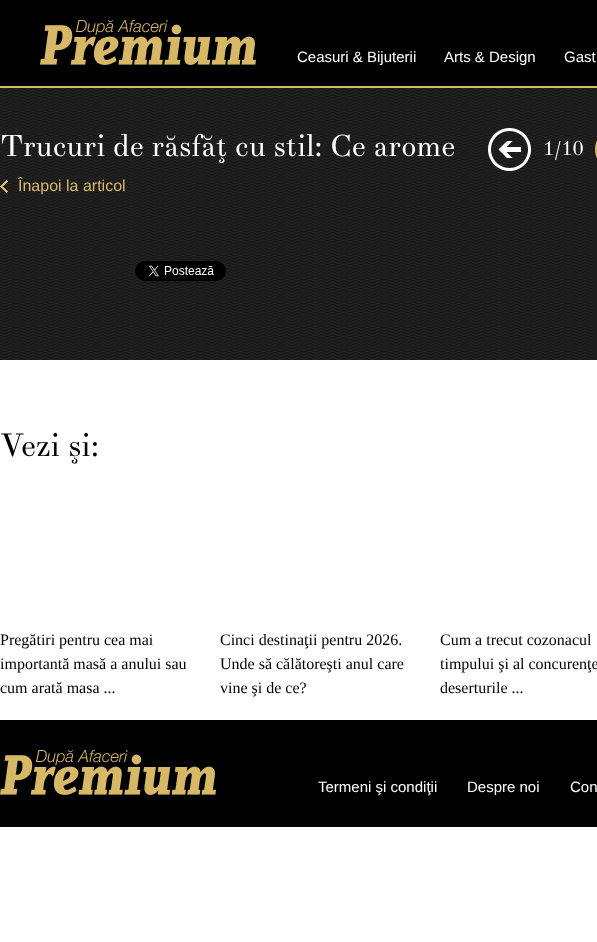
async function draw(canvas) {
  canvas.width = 597;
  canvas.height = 942;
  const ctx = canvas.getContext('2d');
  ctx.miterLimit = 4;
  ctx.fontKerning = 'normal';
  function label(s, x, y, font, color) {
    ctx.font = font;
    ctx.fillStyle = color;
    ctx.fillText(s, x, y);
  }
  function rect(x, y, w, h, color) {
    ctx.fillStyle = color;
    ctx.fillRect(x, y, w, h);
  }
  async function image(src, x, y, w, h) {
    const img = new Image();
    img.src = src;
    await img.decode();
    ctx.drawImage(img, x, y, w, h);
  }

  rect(0, 0, 597, 942, '#fff');
  rect(0, 0, 597, 86, '#000');
  rect(0, 86, 597, 2, '#d7b867');
  await image('assets/img1.png', 40, 20, 216, 45);
  label('Ceasuri & Bijuterii', 297, 62, '15px Liberation Sans', '#fff');
  label('Arts & Design', 444, 62, '15px Liberation Sans', '#fff');
  label('Gast', 564, 62, '15px Liberation Sans', '#fff');
  await image('assets/img2.png', 0, 88, 597, 272);
  label('Trucuri de răsfăţ cu stil: Ce arome', 0, 156, '30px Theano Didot', '#fff');
  await image('assets/img3.png', 0, 180, 8, 13);
  label('Înapoi la articol', 18, 191, '16px Liberation Sans', '#d7b867');
  await image('assets/img4.png', 488, 128, 43, 43);
  label('1/10', 543, 155, '20px Theano Didot', '#fff');
  await image('assets/img5.png', 595, 140, 2, 19);
  await image('assets/img6.png', 135, 261, 91, 20);
  label('Vezi şi:', 0, 456, '32px Theano Didot', '#000');
  label('Pregătiri pentru cea mai', 0, 645, '16px Liberation Serif', '#000');
  label('importantă masă a anului sau', 0, 669, '16px Liberation Serif', '#000');
  label('cum arată masa ...', 0, 693, '16px Liberation Serif', '#000');
  label('Cinci destinaţii pentru 2026.', 220, 645, '16px Liberation Serif', '#000');
  label('Unde să călătoreşti anul care', 220, 669, '16px Liberation Serif', '#000');
  label('vine şi de ce?', 220, 693, '16px Liberation Serif', '#000');
  label('Cum a trecut cozonacul', 440, 645, '16px Liberation Serif', '#000');
  label('timpului şi al concurenţe', 440, 669, '16px Liberation Serif', '#000');
  label('deserturile ...', 440, 693, '16px Liberation Serif', '#000');
  rect(0, 720, 597, 107, '#000');
  await image('assets/img1.png', 0, 750, 216, 45);
  label('Termeni şi condiţii', 318, 792, '15px Liberation Sans', '#fff');
  label('Despre noi', 467, 792, '15px Liberation Sans', '#fff');
  label('Con', 570, 792, '15px Liberation Sans', '#fff');
}

draw(document.querySelector('canvas'));
